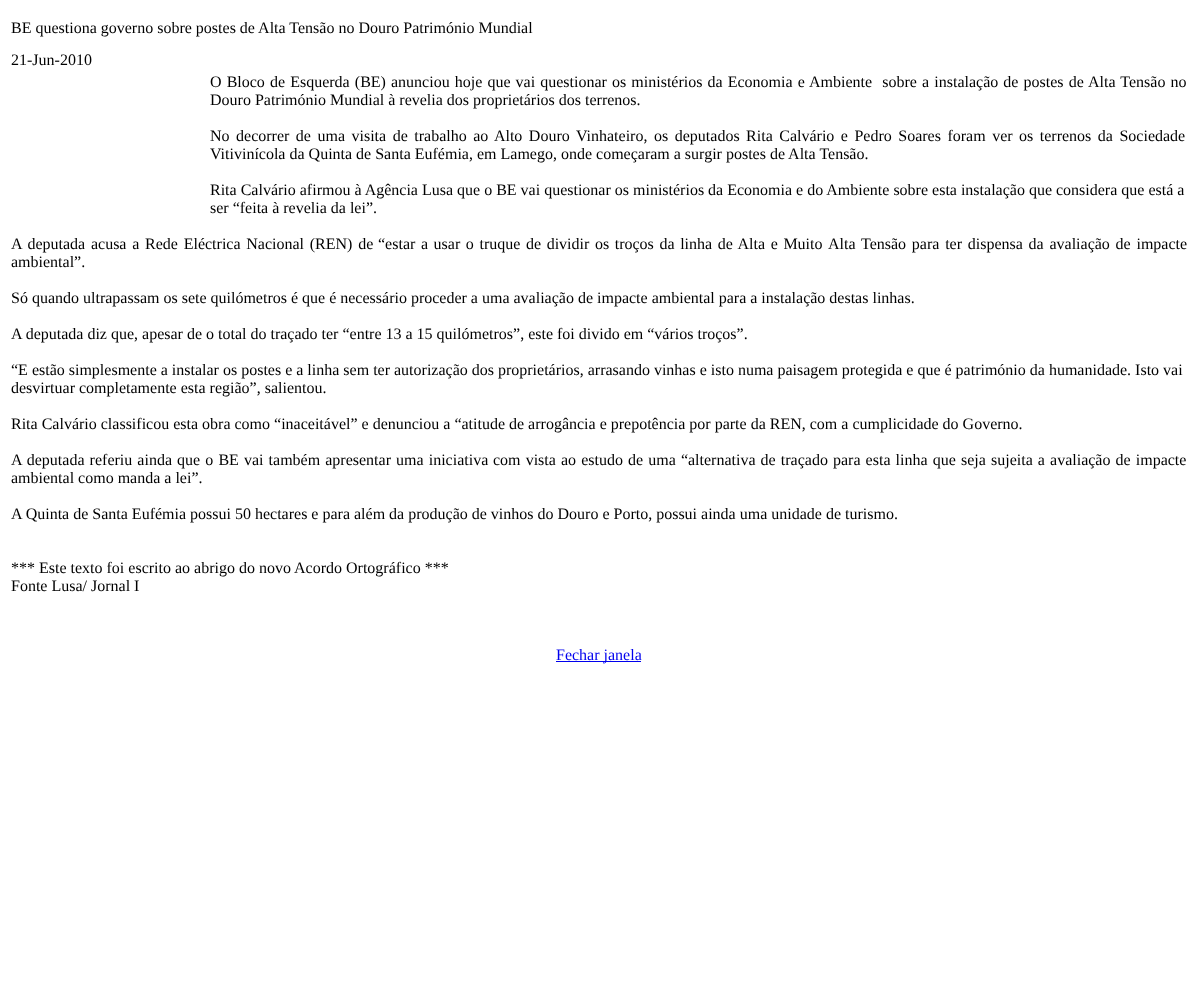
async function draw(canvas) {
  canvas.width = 1197;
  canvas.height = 995;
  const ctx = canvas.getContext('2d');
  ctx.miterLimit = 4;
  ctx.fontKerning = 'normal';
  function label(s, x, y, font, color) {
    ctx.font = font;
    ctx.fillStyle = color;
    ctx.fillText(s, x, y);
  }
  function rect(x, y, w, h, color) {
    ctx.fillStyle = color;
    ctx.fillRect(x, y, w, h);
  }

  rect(0, 0, 1197, 995, '#fff');
  label('BE questiona governo sobre postes de Alta Tensão no Douro Património Mundial', 11, 33, '16px Liberation Serif', '#000');
  label('21-Jun-2010', 11, 65, '16px Liberation Serif', '#000');
  ctx.wordSpacing = '1.1px';
  label('O Bloco de Esquerda (BE) anunciou hoje que vai questionar os ministérios da Economia e Ambiente  sobre a instalação de postes de Alta Tensão no', 210, 87, '16px Liberation Serif', '#000');
  ctx.wordSpacing = '0px';
  label('Douro Património Mundial à revelia dos proprietários dos terrenos.', 210, 105, '16px Liberation Serif', '#000');
  ctx.wordSpacing = '2.5px';
  label('No decorrer de uma visita de trabalho ao Alto Douro Vinhateiro,', 210, 141, '16px Liberation Serif', '#000');
  label('os deputados Rita Calvário e Pedro Soares foram ver os terrenos da Sociedade', 654, 141, '16px Liberation Serif', '#000');
  ctx.wordSpacing = '0px';
  label('Vitivinícola da Quinta de Santa Eufémia, em Lamego, onde começaram a surgir postes de Alta Tensão.', 210, 159, '16px Liberation Serif', '#000');
  label('Rita Calvário afirmou à Agência Lusa que o BE vai questionar os ministérios da Economia e do Ambiente sobre esta instalação que considera que está a', 210, 195, '16px Liberation Serif', '#000');
  label('ser “feita à revelia da lei”.', 210, 213, '16px Liberation Serif', '#000');
  ctx.wordSpacing = '1.75px';
  label('A deputada acusa a Rede Eléctrica Nacional (REN) de', 11, 249, '16px Liberation Serif', '#000');
  ctx.wordSpacing = '1.6px';
  label('“estar a usar o truque de dividir os troços da linha de Alta e Muito', 378, 249, '16px Liberation Serif', '#000');
  ctx.wordSpacing = '1.75px';
  label('Alta Tensão para ter dispensa da avaliação de impacte', 828, 249, '16px Liberation Serif', '#000');
  ctx.wordSpacing = '0px';
  label('ambiental”.', 11, 267, '16px Liberation Serif', '#000');
  label('Só quando ultrapassam os sete quilómetros é que é necessário proceder a uma avaliação de impacte ambiental para a instalação destas linhas.', 11, 303, '16px Liberation Serif', '#000');
  label('A deputada diz que, apesar de o total do traçado ter “entre 13 a 15 quilómetros”, este foi divido em “vários troços”.', 11, 339, '16px Liberation Serif', '#000');
  label('“E estão simplesmente a instalar os postes e a linha sem ter autorização dos proprietários, arrasando vinhas e isto numa paisagem protegida e que é património da humanidade. Isto vai', 11, 375, '16px Liberation Serif', '#000');
  label('desvirtuar completamente esta região”, salientou.', 11, 393, '16px Liberation Serif', '#000');
  label('Rita Calvário classificou esta obra como “inaceitável” e denunciou a “atitude de arrogância e prepotência por parte da REN, com a cumplicidade do Governo.', 11, 429, '16px Liberation Serif', '#000');
  ctx.wordSpacing = '1.1px';
  label('A deputada referiu ainda que o BE vai também apresentar uma iniciativa', 11, 465, '16px Liberation Serif', '#000');
  label('com vista ao estudo de uma “alternativa de traçado para esta linha que', 493, 465, '16px Liberation Serif', '#000');
  label('seja sujeita a avaliação de impacte', 961, 465, '16px Liberation Serif', '#000');
  ctx.wordSpacing = '0px';
  label('ambiental como manda a lei”.', 11, 483, '16px Liberation Serif', '#000');
  label('A Quinta de Santa Eufémia possui 50 hectares e para além da produção de vinhos do Douro e Porto, possui ainda uma unidade de turismo.', 11, 519, '16px Liberation Serif', '#000');
  label('*** Este texto foi escrito ao abrigo do novo Acordo Ortográfico ***', 11, 573, '16px Liberation Serif', '#000');
  label('Fonte Lusa/ Jornal I', 11, 591, '16px Liberation Serif', '#000');
  rect(556, 661, 85, 1, '#00e');
  label('Fechar janela', 556, 660, '16px Liberation Serif', '#00e');
}

draw(document.querySelector('canvas'));
